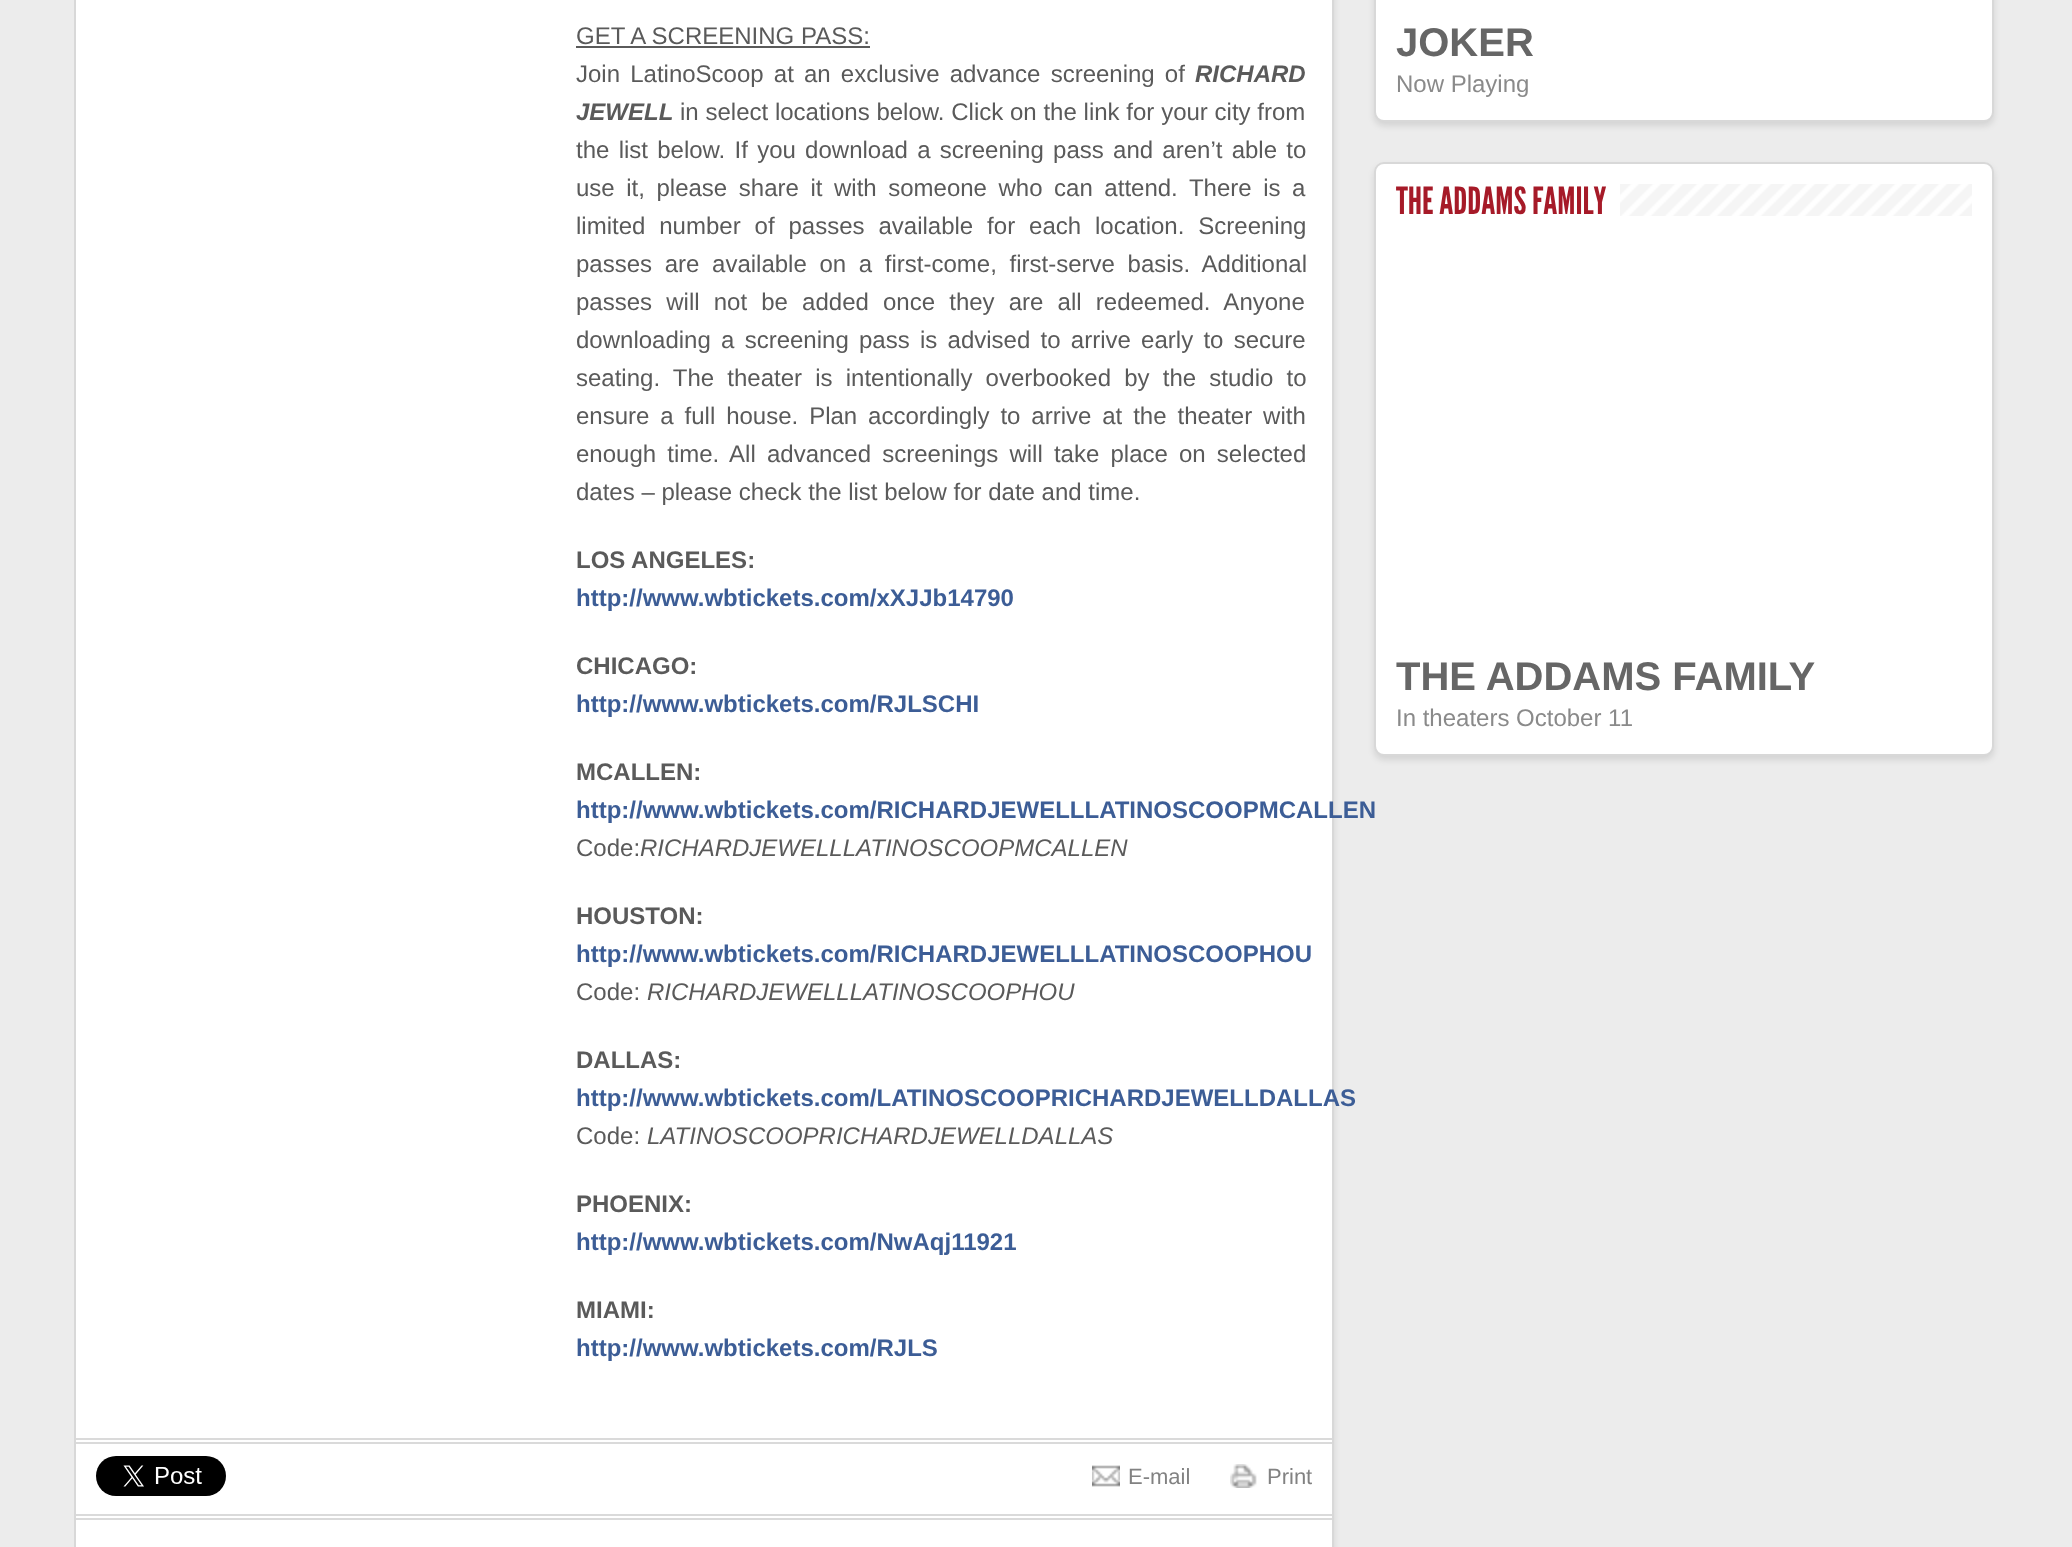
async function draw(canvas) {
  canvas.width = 2072;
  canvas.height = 1547;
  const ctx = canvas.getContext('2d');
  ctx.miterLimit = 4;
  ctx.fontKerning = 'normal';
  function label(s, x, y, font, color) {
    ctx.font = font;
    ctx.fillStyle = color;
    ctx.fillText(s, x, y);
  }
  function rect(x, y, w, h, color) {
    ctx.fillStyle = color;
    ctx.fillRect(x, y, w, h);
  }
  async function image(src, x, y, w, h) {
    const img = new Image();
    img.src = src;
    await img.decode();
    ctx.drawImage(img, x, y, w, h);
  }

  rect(0, 0, 2072, 1547, '#ececec');
  ctx.save();
  ctx.beginPath();
  ctx.rect(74, 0, 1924, 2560);
  ctx.clip();
  ctx.fillStyle = '#0000001a';
  ctx.filter = 'blur(3px)';
  ctx.beginPath();
  ctx.roundRect(74, -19, 1260, 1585, 10);
  ctx.fill();
  ctx.filter = 'none';
  ctx.restore();
  ctx.fillStyle = '#fff';
  ctx.beginPath();
  ctx.rect(75, -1, 1258, 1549);
  ctx.fill();
  ctx.strokeStyle = '#d8d8d8';
  ctx.lineWidth = 2;
  ctx.stroke();
  label('GET A SCREENING PASS:', 576, 44, '24px Liberation Sans', '#5a5a5a');
  rect(576, 46, 294, 2, '#5a5a5a');
  ctx.wordSpacing = '3.5px';
  label('Join LatinoScoop at an exclusive advance screening of', 576, 82, '24px Liberation Sans', '#5a5a5a');
  ctx.wordSpacing = '0px';
  label('RICHARD', 1195, 82, 'italic bold 24px Liberation Sans', '#5a5a5a');
  label('JEWELL', 576, 120, 'italic bold 24px Liberation Sans', '#5a5a5a');
  ctx.wordSpacing = '0.1px';
  label('in select locations below. Click on the link for your city from', 680, 120, '24px Liberation Sans', '#5a5a5a');
  ctx.wordSpacing = '2.6px';
  label('the list below. If you download a screening pass and aren’t able to', 576, 158, '24px Liberation Sans', '#5a5a5a');
  ctx.wordSpacing = '4.9px';
  label('use it, please share it with someone who can attend. There is a', 576, 196, '24px Liberation Sans', '#5a5a5a');
  ctx.wordSpacing = '7.25px';
  label('limited number of passes available for each location. Screening', 576, 234, '24px Liberation Sans', '#5a5a5a');
  ctx.wordSpacing = '6px';
  label('passes are available on a first-come, first-serve basis. Additional', 576, 272, '24px Liberation Sans', '#5a5a5a');
  ctx.wordSpacing = '7.5px';
  label('passes will not be added once they are all redeemed. Anyone', 576, 310, '24px Liberation Sans', '#5a5a5a');
  ctx.wordSpacing = '3.6px';
  label('downloading a screening pass is advised to arrive early to secure', 576, 348, '24px Liberation Sans', '#5a5a5a');
  ctx.wordSpacing = '6.5px';
  label('seating. The theater is intentionally overbooked by the studio to', 576, 386, '24px Liberation Sans', '#5a5a5a');
  ctx.wordSpacing = '4.25px';
  label('ensure a full house. Plan accordingly to arrive at the theater with', 576, 424, '24px Liberation Sans', '#5a5a5a');
  ctx.wordSpacing = '4.5px';
  label('enough time. All advanced screenings will take place on selected', 576, 462, '24px Liberation Sans', '#5a5a5a');
  ctx.wordSpacing = '0px';
  label('dates – please check the list below for date and time.', 576, 500, '24px Liberation Sans', '#5a5a5a');
  label('LOS ANGELES:', 576, 568, 'bold 24px Liberation Sans', '#5a5a5a');
  label('http://www.wbtickets.com/xXJJb14790', 576, 606, 'bold 24px Liberation Sans', '#3c5d96');
  label('CHICAGO:', 576, 674, 'bold 24px Liberation Sans', '#5a5a5a');
  label('http://www.wbtickets.com/RJLSCHI', 576, 712, 'bold 24px Liberation Sans', '#3c5d96');
  label('MCALLEN:', 576, 780, 'bold 24px Liberation Sans', '#5a5a5a');
  label('http://www.wbtickets.com/RICHARDJEWELLLATINOSCOOPMCALLEN', 576, 818, 'bold 24px Liberation Sans', '#3c5d96');
  label('Code:', 576, 856, '24px Liberation Sans', '#5a5a5a');
  label('RICHARDJEWELLLATINOSCOOPMCALLEN', 640, 856, 'italic 24px Liberation Sans', '#5a5a5a');
  label('HOUSTON:', 576, 924, 'bold 24px Liberation Sans', '#5a5a5a');
  label('http://www.wbtickets.com/RICHARDJEWELLLATINOSCOOPHOU', 576, 962, 'bold 24px Liberation Sans', '#3c5d96');
  label('Code:', 576, 1000, '24px Liberation Sans', '#5a5a5a');
  label('RICHARDJEWELLLATINOSCOOPHOU', 647, 1000, 'italic 24px Liberation Sans', '#5a5a5a');
  label('DALLAS:', 576, 1068, 'bold 24px Liberation Sans', '#5a5a5a');
  label('http://www.wbtickets.com/LATINOSCOOPRICHARDJEWELLDALLAS', 576, 1106, 'bold 24px Liberation Sans', '#3c5d96');
  label('Code:', 576, 1144, '24px Liberation Sans', '#5a5a5a');
  label('LATINOSCOOPRICHARDJEWELLDALLAS', 647, 1144, 'italic 24px Liberation Sans', '#5a5a5a');
  label('PHOENIX:', 576, 1212, 'bold 24px Liberation Sans', '#5a5a5a');
  label('http://www.wbtickets.com/NwAqj11921', 576, 1250, 'bold 24px Liberation Sans', '#3c5d96');
  label('MIAMI:', 576, 1318, 'bold 24px Liberation Sans', '#5a5a5a');
  label('http://www.wbtickets.com/RJLS', 576, 1356, 'bold 24px Liberation Sans', '#3c5d96');
  rect(76, 1438, 1256, 2, '#dadada');
  rect(76, 1442, 1256, 2, '#dadada');
  rect(76, 1514, 1256, 2, '#dadada');
  rect(76, 1518, 1256, 2, '#dadada');
  await image('assets/img1.png', 96, 1456, 130, 40);
  await image('assets/img2.png', 1092, 1465, 28, 22);
  label('E-mail', 1128, 1484, '22px Liberation Sans', '#828282');
  await image('assets/img3.png', 1230, 1464, 27, 24);
  label('Print', 1267, 1484, '22px Liberation Sans', '#828282');
  ctx.fillStyle = '#0000001a';
  ctx.filter = 'blur(3px)';
  ctx.beginPath();
  ctx.roundRect(1374, -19, 620, 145, 10);
  ctx.fill();
  ctx.filter = 'none';
  ctx.fillStyle = '#fff';
  ctx.beginPath();
  ctx.roundRect(1375, -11, 618, 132, 9);
  ctx.fill();
  ctx.stroke();
  label('JOKER', 1396, 56, 'bold 40px Liberation Sans', '#666');
  label('Now Playing', 1396, 92, '24px Liberation Sans', '#8a8a8a');
  ctx.fillStyle = '#0000001a';
  ctx.filter = 'blur(3px)';
  ctx.beginPath();
  ctx.roundRect(1374, 166, 620, 594, 10);
  ctx.fill();
  ctx.filter = 'none';
  ctx.fillStyle = '#fff';
  ctx.beginPath();
  ctx.roundRect(1375, 163, 618, 592, 9);
  ctx.fill();
  ctx.stroke();
  await image('assets/img4.png', 1620, 184, 352, 32);
  label('THE ADDAMS FAMILY', 1396, 214, '37.5px League Gothic', '#a61a28');
  label('THE ADDAMS FAMILY', 1396, 690, 'bold 40px Liberation Sans', '#666');
  label('In theaters October 11', 1396, 726, '24px Liberation Sans', '#8a8a8a');
}

draw(document.querySelector('canvas'));
